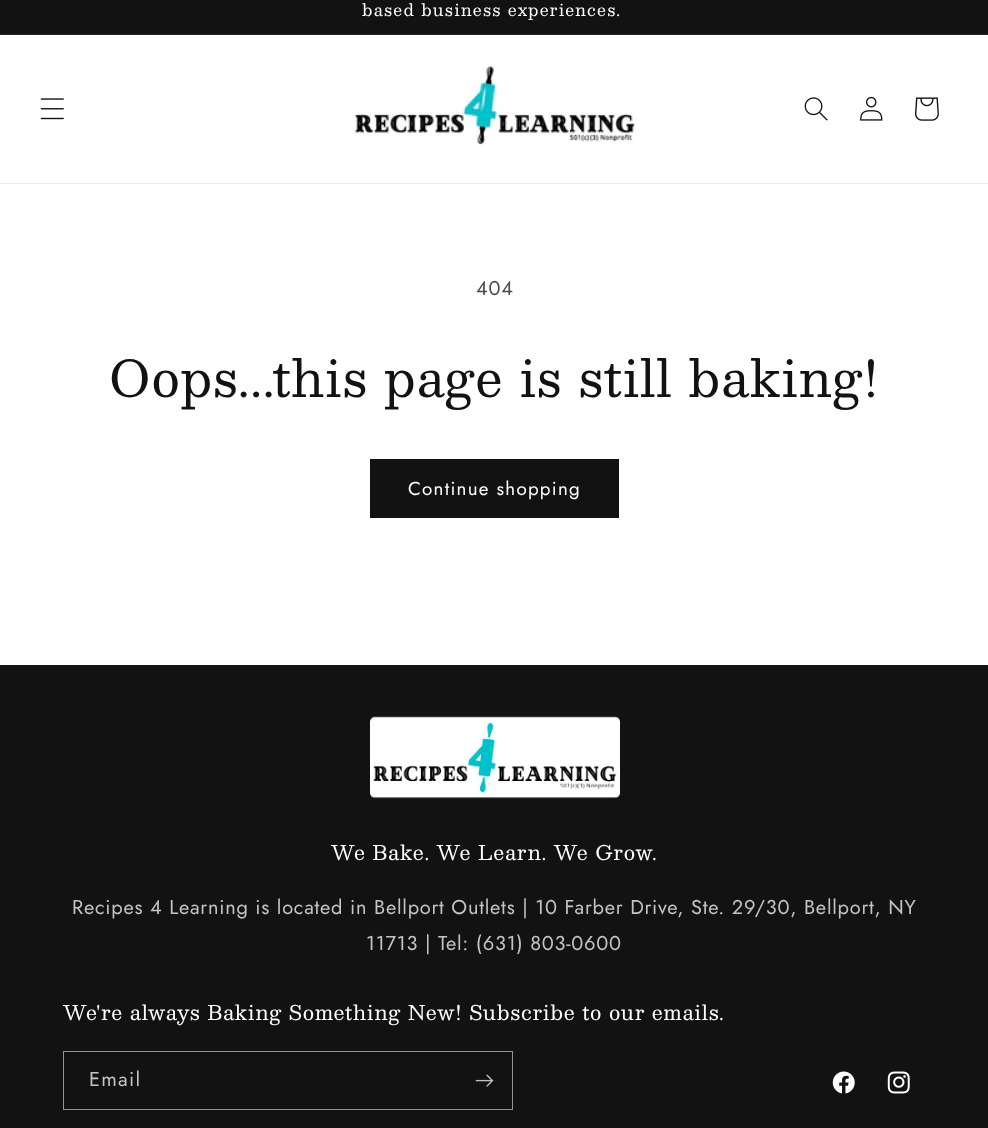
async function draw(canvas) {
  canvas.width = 988;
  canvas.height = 1128;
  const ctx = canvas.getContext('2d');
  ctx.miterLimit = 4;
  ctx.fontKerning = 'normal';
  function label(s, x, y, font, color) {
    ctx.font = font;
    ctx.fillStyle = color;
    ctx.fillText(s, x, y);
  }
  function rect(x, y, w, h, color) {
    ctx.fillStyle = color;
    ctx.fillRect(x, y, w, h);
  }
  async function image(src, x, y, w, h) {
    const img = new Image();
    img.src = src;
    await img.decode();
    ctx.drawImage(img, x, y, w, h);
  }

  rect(0, 0, 988, 1128, '#fff');
  rect(0, 0, 988, 34, '#121212');
  rect(0, 34, 988, 1, '#252525');
  ctx.letterSpacing = '1.25px';
  label('based business experiences.', 362, 16, '16.25px Besley', '#fff');
  rect(0, 183, 988, 1, '#ececec');
  await image('assets/img1.png', 40, 98, 24, 22);
  await image('assets/img2.png', 354, 66, 282, 80);
  await image('assets/img3.png', 804, 97, 24, 24);
  await image('assets/img4.png', 860, 96, 23, 25);
  await image('assets/img5.png', 915, 97, 24, 24);
  ctx.letterSpacing = '0.75px';
  label('404', 476, 295, '20px Jost', '#4d4d4d');
  label('Oops...this page is still baking!', 109, 397, '50px Besley', '#121212');
  rect(370, 459, 249, 59, '#121212');
  ctx.letterSpacing = '1.25px';
  label('Continue shopping', 408, 495, '18.75px Jost', '#fff');
  rect(0, 665, 988, 463, '#121212');
  await image('assets/img6.png', 370, 716, 250, 83);
  ctx.letterSpacing = '0.75px';
  label('We Bake. We Learn. We Grow.', 331, 860, '20px Besley', '#fff');
  label('Recipes 4 Learning is located in Bellport Outlets | 10 Farber Drive, Ste. 29/30, Bellport, NY', 72, 914, '20px Jost', '#c4c4c4');
  label('11713 | Tel: (631) 803-0600', 366, 950, '20px Jost', '#c4c4c4');
  label('We\'re always Baking Something New! Subscribe to our emails.', 63, 1020, '20px Besley', '#fff');
  ctx.strokeStyle = '#949494';
  ctx.strokeRect(63.5, 1051.5, 449, 58);
  ctx.letterSpacing = '1.25px';
  label('Email', 89, 1086, '20px Jost', '#c4c4c4');
  await image('assets/img7.png', 475, 1074, 18, 13);
  await image('assets/img8.png', 832, 1071, 23, 23);
  await image('assets/img9.png', 887, 1071, 23, 23);
}

draw(document.querySelector('canvas'));
